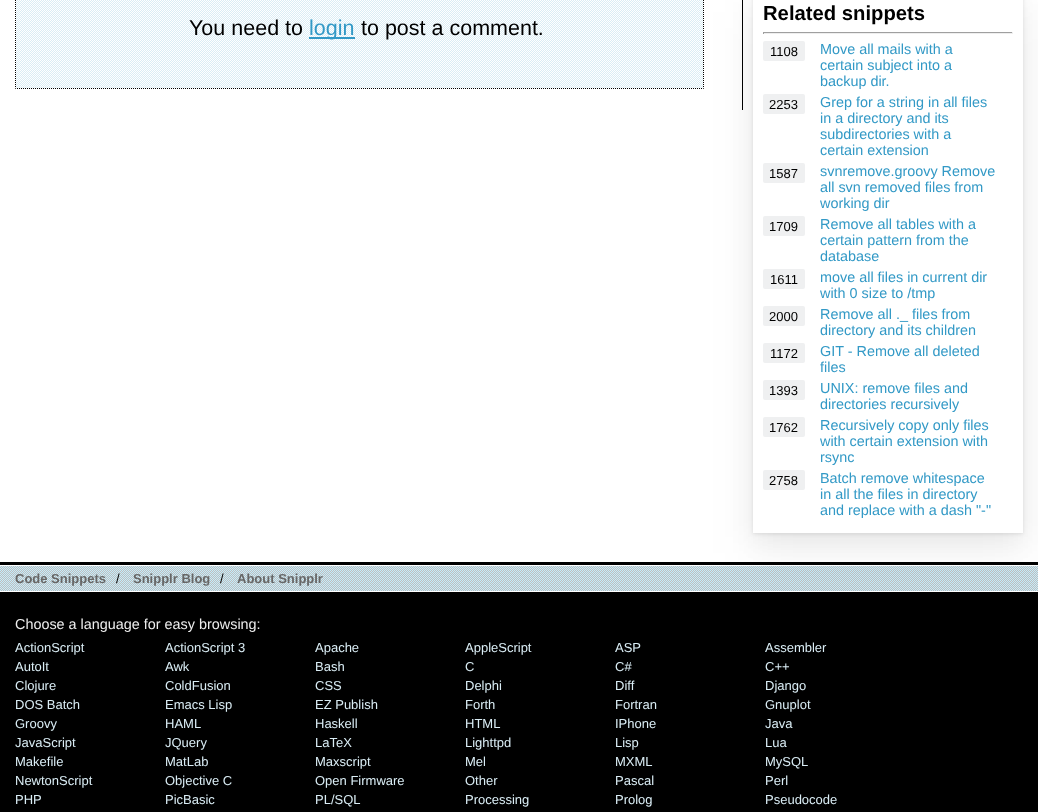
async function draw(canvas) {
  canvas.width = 1038;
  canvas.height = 812;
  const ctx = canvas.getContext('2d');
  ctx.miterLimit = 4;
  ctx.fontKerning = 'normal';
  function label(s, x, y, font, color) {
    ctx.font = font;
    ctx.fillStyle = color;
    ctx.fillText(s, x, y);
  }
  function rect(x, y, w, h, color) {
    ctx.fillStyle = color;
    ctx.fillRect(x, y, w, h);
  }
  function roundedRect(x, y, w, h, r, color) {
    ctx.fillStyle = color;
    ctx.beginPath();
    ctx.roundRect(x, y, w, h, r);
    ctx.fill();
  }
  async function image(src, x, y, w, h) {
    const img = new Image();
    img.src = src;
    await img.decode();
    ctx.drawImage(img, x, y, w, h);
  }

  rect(0, 0, 1038, 812, '#000');
  rect(0, 0, 1038, 562, '#fff');
  rect(742, 0, 1, 110, '#000');
  await image('assets/img2.png', 0, 565, 1038, 26);
  rect(0, 591, 1038, 1, '#fff');
  ctx.fillStyle = '#0000000d';
  ctx.filter = 'blur(24px)';
  ctx.beginPath();
  ctx.rect(753, 12, 270, 541);
  ctx.fill();
  ctx.filter = 'none';
  ctx.fillStyle = '#daedf5';
  ctx.beginPath();
  ctx.rect(15.5, -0.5, 688, 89);
  ctx.fill();
  ctx.strokeStyle = '#000';
  ctx.stroke();
  await image('assets/img1.png', 15, 0, 689, 89);
  label('You need to', 189, 35, '21.5px Liberation Sans', '#000');
  rect(309, 37, 46, 2, '#3299c6');
  label('login', 309, 35, '21.5px Liberation Sans', '#3299c6');
  label('to post a comment.', 361, 35, '21.5px Liberation Sans', '#000');
  ctx.fillStyle = '#0000001a';
  ctx.filter = 'blur(2px)';
  ctx.beginPath();
  ctx.rect(753, -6, 270, 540);
  ctx.fill();
  ctx.filter = 'none';
  ctx.fillStyle = '#0000000d';
  ctx.filter = 'blur(12.5px)';
  ctx.beginPath();
  ctx.rect(753, 2, 270, 541);
  ctx.fill();
  ctx.filter = 'none';
  rect(753, 0, 270, 533, '#fff');
  label('Related snippets', 763, 20, 'bold 20.25px Liberation Sans', '#000');
  rect(763, 32, 250, 1, '#9f9f9f');
  rect(1012, 32, 1, 2, '#eee');
  rect(763, 33, 250, 1, '#eee');
  rect(763, 32, 1, 2, '#9f9f9f');
  roundedRect(763, 41, 42, 20, 2, '#eff0f1');
  label('1108', 770, 56, '13px Liberation Sans', '#000');
  label('Move all mails with a', 820, 54, '14.4px Liberation Sans', '#3299c6');
  label('certain subject into a', 820, 70, '14.4px Liberation Sans', '#3299c6');
  label('backup dir.', 820, 86, '14.4px Liberation Sans', '#3299c6');
  roundedRect(763, 94, 42, 20, 2, '#eff0f1');
  label('2253', 769, 109, '13px Liberation Sans', '#000');
  label('Grep for a string in all files', 820, 107, '14.4px Liberation Sans', '#3299c6');
  label('in a directory and its', 820, 123, '14.4px Liberation Sans', '#3299c6');
  label('subdirectories with a', 820, 139, '14.4px Liberation Sans', '#3299c6');
  label('certain extension', 820, 155, '14.4px Liberation Sans', '#3299c6');
  roundedRect(763, 163, 42, 20, 2, '#eff0f1');
  label('1587', 769, 178, '13px Liberation Sans', '#000');
  label('svnremove.groovy Remove', 820, 176, '14.4px Liberation Sans', '#3299c6');
  label('all svn removed files from', 820, 192, '14.4px Liberation Sans', '#3299c6');
  label('working dir', 820, 208, '14.4px Liberation Sans', '#3299c6');
  roundedRect(763, 216, 42, 20, 2, '#eff0f1');
  label('1709', 769, 231, '13px Liberation Sans', '#000');
  label('Remove all tables with a', 820, 229, '14.4px Liberation Sans', '#3299c6');
  label('certain pattern from the', 820, 245, '14.4px Liberation Sans', '#3299c6');
  label('database', 820, 261, '14.4px Liberation Sans', '#3299c6');
  roundedRect(763, 269, 42, 20, 2, '#eff0f1');
  label('1611', 770, 284, '13px Liberation Sans', '#000');
  label('move all files in current dir', 820, 282, '14.4px Liberation Sans', '#3299c6');
  label('with 0 size to /tmp', 820, 298, '14.4px Liberation Sans', '#3299c6');
  roundedRect(763, 306, 42, 20, 2, '#eff0f1');
  label('2000', 769, 321, '13px Liberation Sans', '#000');
  label('Remove all ._ files from', 820, 319, '14.4px Liberation Sans', '#3299c6');
  label('directory and its children', 820, 335, '14.4px Liberation Sans', '#3299c6');
  roundedRect(763, 343, 42, 20, 2, '#eff0f1');
  label('1172', 770, 358, '13px Liberation Sans', '#000');
  label('GIT - Remove all deleted', 820, 356, '14.4px Liberation Sans', '#3299c6');
  label('files', 820, 372, '14.4px Liberation Sans', '#3299c6');
  roundedRect(763, 380, 42, 20, 2, '#eff0f1');
  label('1393', 769, 395, '13px Liberation Sans', '#000');
  label('UNIX: remove files and', 820, 393, '14.4px Liberation Sans', '#3299c6');
  label('directories recursively', 820, 409, '14.4px Liberation Sans', '#3299c6');
  roundedRect(763, 417, 42, 20, 2, '#eff0f1');
  label('1762', 769, 432, '13px Liberation Sans', '#000');
  label('Recursively copy only files', 820, 430, '14.4px Liberation Sans', '#3299c6');
  label('with certain extension with', 820, 446, '14.4px Liberation Sans', '#3299c6');
  label('rsync', 820, 462, '14.4px Liberation Sans', '#3299c6');
  roundedRect(763, 470, 42, 20, 2, '#eff0f1');
  label('2758', 769, 485, '13px Liberation Sans', '#000');
  label('Batch remove whitespace', 820, 483, '14.4px Liberation Sans', '#3299c6');
  label('in all the files in directory', 820, 499, '14.4px Liberation Sans', '#3299c6');
  label('and replace with a dash "-"', 820, 515, '14.4px Liberation Sans', '#3299c6');
  label('Code Snippets', 15, 583, 'bold 13px Liberation Sans', '#666');
  label('/', 116, 583, '13px Liberation Sans', '#000');
  label('Snipplr Blog', 133, 583, 'bold 13px Liberation Sans', '#666');
  label('/', 220, 583, '13px Liberation Sans', '#000');
  label('About Snipplr', 237, 583, 'bold 13px Liberation Sans', '#666');
  label('Choose a language for easy browsing:', 15, 629, '14.4px Liberation Sans', '#eee');
  label('ActionScript', 15, 652, '13px Liberation Sans', '#daedf5');
  label('ActionScript 3', 165, 652, '13px Liberation Sans', '#daedf5');
  label('Apache', 315, 652, '13px Liberation Sans', '#daedf5');
  label('AppleScript', 465, 652, '13px Liberation Sans', '#daedf5');
  label('ASP', 615, 652, '13px Liberation Sans', '#daedf5');
  label('Assembler', 765, 652, '13px Liberation Sans', '#daedf5');
  label('AutoIt', 15, 671, '13px Liberation Sans', '#daedf5');
  label('Awk', 165, 671, '13px Liberation Sans', '#daedf5');
  label('Bash', 315, 671, '13px Liberation Sans', '#daedf5');
  label('C', 465, 671, '13px Liberation Sans', '#daedf5');
  label('C#', 615, 671, '13px Liberation Sans', '#daedf5');
  label('C++', 765, 671, '13px Liberation Sans', '#daedf5');
  label('Clojure', 15, 690, '13px Liberation Sans', '#daedf5');
  label('ColdFusion', 165, 690, '13px Liberation Sans', '#daedf5');
  label('CSS', 315, 690, '13px Liberation Sans', '#daedf5');
  label('Delphi', 465, 690, '13px Liberation Sans', '#daedf5');
  label('Diff', 615, 690, '13px Liberation Sans', '#daedf5');
  label('Django', 765, 690, '13px Liberation Sans', '#daedf5');
  label('DOS Batch', 15, 709, '13px Liberation Sans', '#daedf5');
  label('Emacs Lisp', 165, 709, '13px Liberation Sans', '#daedf5');
  label('EZ Publish', 315, 709, '13px Liberation Sans', '#daedf5');
  label('Forth', 465, 709, '13px Liberation Sans', '#daedf5');
  label('Fortran', 615, 709, '13px Liberation Sans', '#daedf5');
  label('Gnuplot', 765, 709, '13px Liberation Sans', '#daedf5');
  label('Groovy', 15, 728, '13px Liberation Sans', '#daedf5');
  label('HAML', 165, 728, '13px Liberation Sans', '#daedf5');
  label('Haskell', 315, 728, '13px Liberation Sans', '#daedf5');
  label('HTML', 465, 728, '13px Liberation Sans', '#daedf5');
  label('IPhone', 615, 728, '13px Liberation Sans', '#daedf5');
  label('Java', 765, 728, '13px Liberation Sans', '#daedf5');
  label('JavaScript', 15, 747, '13px Liberation Sans', '#daedf5');
  label('JQuery', 165, 747, '13px Liberation Sans', '#daedf5');
  label('LaTeX', 315, 747, '13px Liberation Sans', '#daedf5');
  label('Lighttpd', 465, 747, '13px Liberation Sans', '#daedf5');
  label('Lisp', 615, 747, '13px Liberation Sans', '#daedf5');
  label('Lua', 765, 747, '13px Liberation Sans', '#daedf5');
  label('Makefile', 15, 766, '13px Liberation Sans', '#daedf5');
  label('MatLab', 165, 766, '13px Liberation Sans', '#daedf5');
  label('Maxscript', 315, 766, '13px Liberation Sans', '#daedf5');
  label('Mel', 465, 766, '13px Liberation Sans', '#daedf5');
  label('MXML', 615, 766, '13px Liberation Sans', '#daedf5');
  label('MySQL', 765, 766, '13px Liberation Sans', '#daedf5');
  label('NewtonScript', 15, 785, '13px Liberation Sans', '#daedf5');
  label('Objective C', 165, 785, '13px Liberation Sans', '#daedf5');
  label('Open Firmware', 315, 785, '13px Liberation Sans', '#daedf5');
  label('Other', 465, 785, '13px Liberation Sans', '#daedf5');
  label('Pascal', 615, 785, '13px Liberation Sans', '#daedf5');
  label('Perl', 765, 785, '13px Liberation Sans', '#daedf5');
  label('PHP', 15, 804, '13px Liberation Sans', '#daedf5');
  label('PicBasic', 165, 804, '13px Liberation Sans', '#daedf5');
  label('PL/SQL', 315, 804, '13px Liberation Sans', '#daedf5');
  label('Processing', 465, 804, '13px Liberation Sans', '#daedf5');
  label('Prolog', 615, 804, '13px Liberation Sans', '#daedf5');
  label('Pseudocode', 765, 804, '13px Liberation Sans', '#daedf5');
}

draw(document.querySelector('canvas'));
